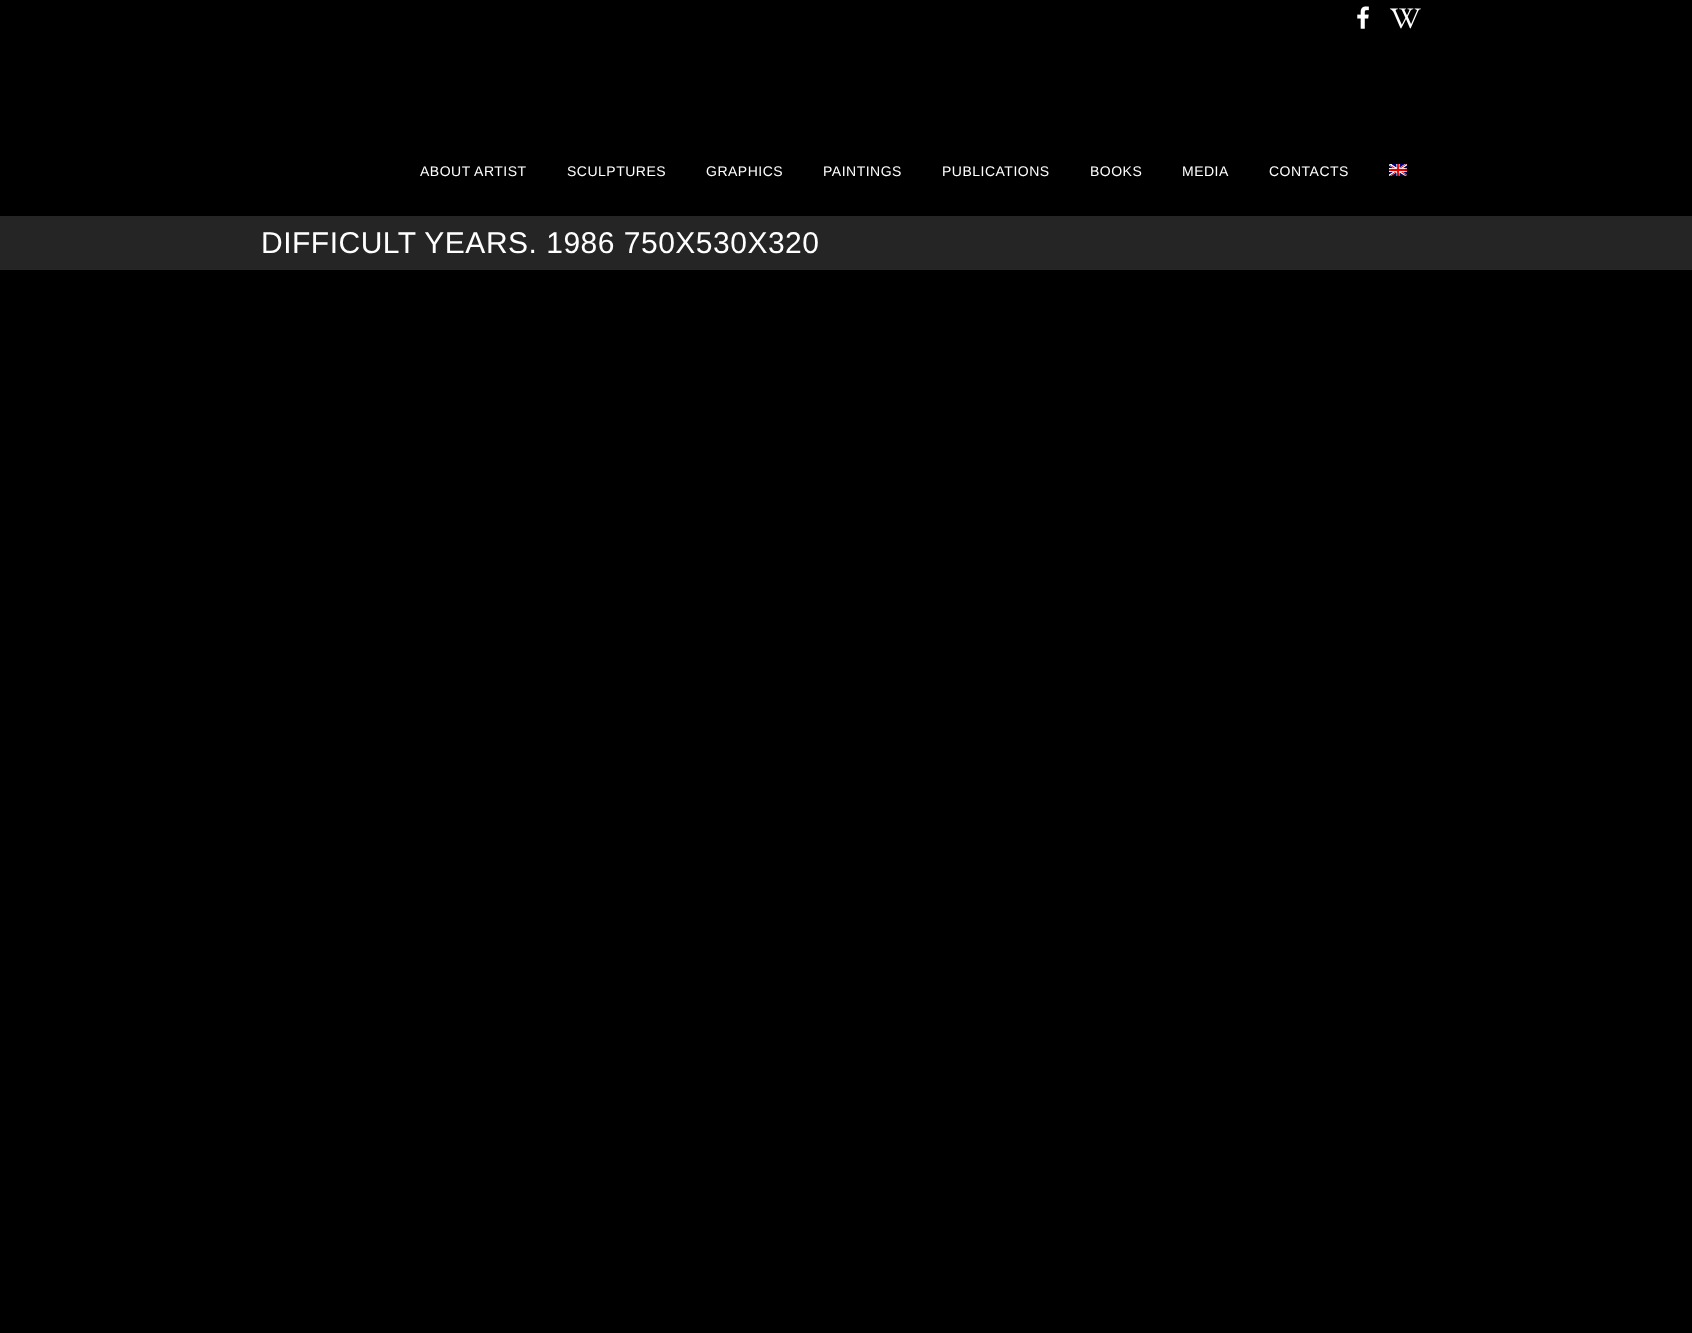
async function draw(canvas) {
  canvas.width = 1692;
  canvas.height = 1333;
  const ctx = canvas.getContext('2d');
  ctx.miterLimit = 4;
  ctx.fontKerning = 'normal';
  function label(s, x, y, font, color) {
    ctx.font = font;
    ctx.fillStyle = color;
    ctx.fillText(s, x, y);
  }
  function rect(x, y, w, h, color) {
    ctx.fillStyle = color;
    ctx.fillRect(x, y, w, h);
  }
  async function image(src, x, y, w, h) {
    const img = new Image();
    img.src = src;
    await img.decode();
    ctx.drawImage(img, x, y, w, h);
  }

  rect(0, 0, 1692, 1333, '#000');
  await image('assets/img1.png', 1357, 6, 12, 23);
  await image('assets/img2.png', 1390, 8, 31, 21);
  ctx.letterSpacing = '0.5px';
  label('ABOUT ARTIST', 420, 176, '14px Liberation Sans', '#fff');
  label('SCULPTURES', 567, 176, '14px Liberation Sans', '#fff');
  label('GRAPHICS', 706, 176, '14px Liberation Sans', '#fff');
  label('PAINTINGS', 823, 176, '14px Liberation Sans', '#fff');
  label('PUBLICATIONS', 942, 176, '14px Liberation Sans', '#fff');
  label('BOOKS', 1090, 176, '14px Liberation Sans', '#fff');
  label('MEDIA', 1182, 176, '14px Liberation Sans', '#fff');
  label('CONTACTS', 1269, 176, '14px Liberation Sans', '#fff');
  await image('assets/img3.png', 1389, 164, 18, 12);
  rect(0, 216, 1692, 54, '#252525');
  label('DIFFICULT YEARS. 1986 750X530X320', 261, 253, '30px Liberation Sans', '#fff');
}

draw(document.querySelector('canvas'));
